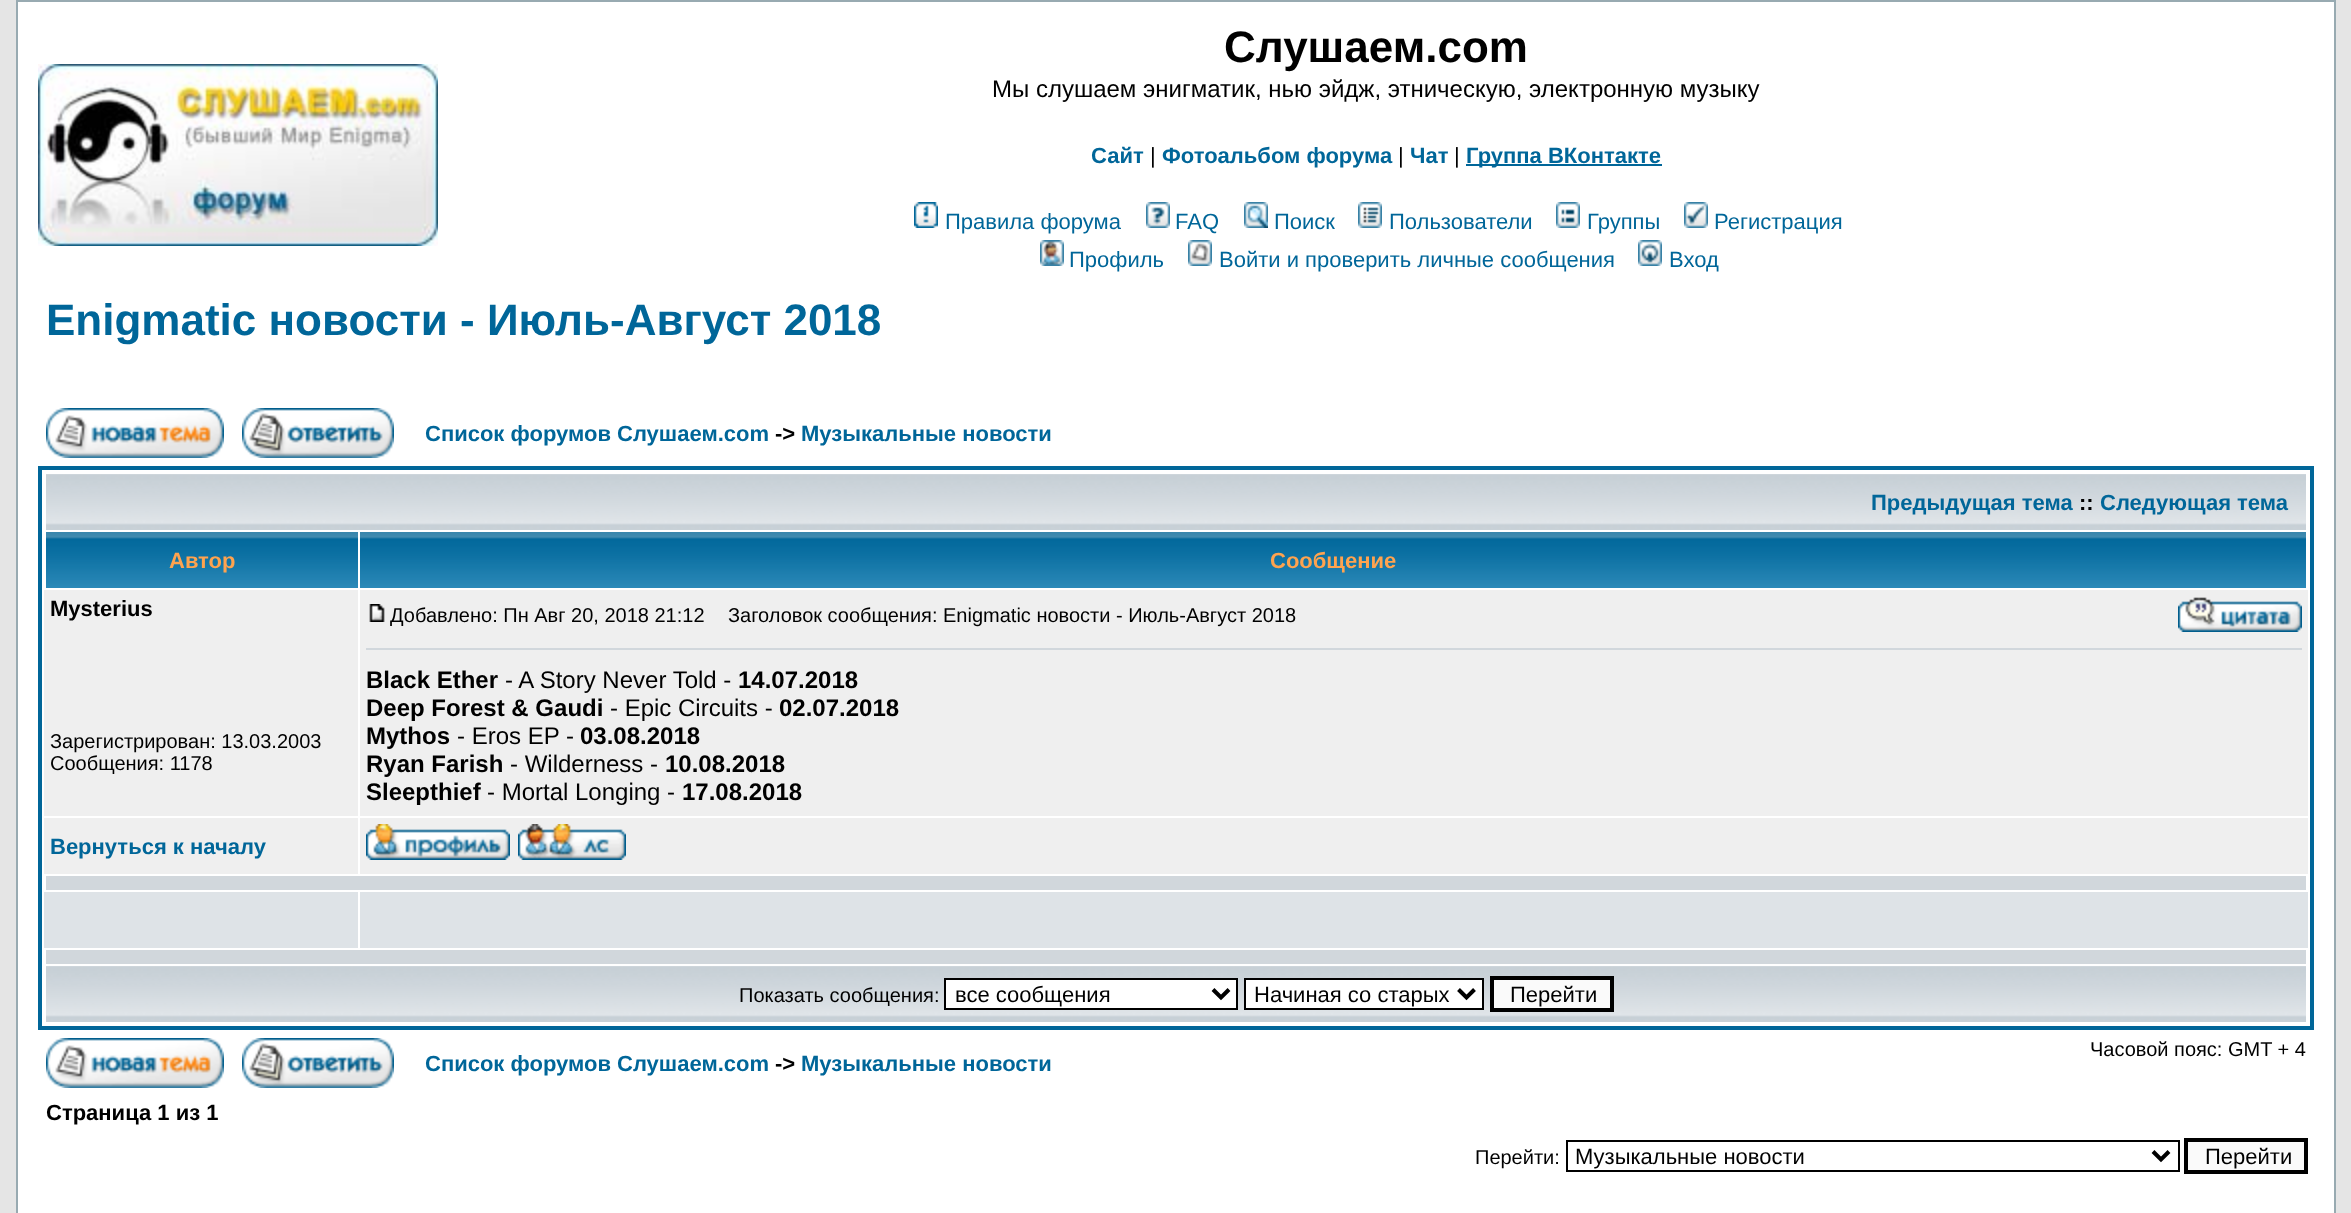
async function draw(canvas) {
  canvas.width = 2351;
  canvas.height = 1213;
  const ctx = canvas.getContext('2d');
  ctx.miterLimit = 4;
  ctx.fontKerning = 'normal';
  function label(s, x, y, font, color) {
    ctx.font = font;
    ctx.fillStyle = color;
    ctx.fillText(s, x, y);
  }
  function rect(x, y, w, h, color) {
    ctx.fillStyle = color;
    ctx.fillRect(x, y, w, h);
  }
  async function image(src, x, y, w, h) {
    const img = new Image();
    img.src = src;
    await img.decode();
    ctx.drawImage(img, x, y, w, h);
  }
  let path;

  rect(0, 0, 2351, 1213, '#e5e5e5');
  ctx.fillStyle = '#fff';
  ctx.beginPath();
  ctx.rect(17, 1, 2318, 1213);
  ctx.fill();
  ctx.strokeStyle = '#98aab1';
  ctx.lineWidth = 2;
  ctx.stroke();
  await image('assets/img1.png', 38, 64, 400, 182);
  label('Слушаем.com', 1224, 62, 'bold 44px Liberation Sans', '#000');
  label('Мы слушаем энигматик, нью эйдж, этническую, электронную музыку', 992, 97, '24px Liberation Sans', '#000');
  label('Сайт', 1091, 163, 'bold 22px Liberation Sans', '#069');
  label('|', 1150, 163, '22px Liberation Sans', '#000');
  label('Фотоальбом форума', 1162, 163, 'bold 22px Liberation Sans', '#069');
  label('|', 1398, 163, '22px Liberation Sans', '#000');
  label('Чат', 1410, 163, 'bold 22px Liberation Sans', '#069');
  label('|', 1454, 163, '22px Liberation Sans', '#000');
  rect(1466, 164, 196, 2, '#069');
  label('Группа ВКонтакте', 1466, 163, 'bold 22px Liberation Sans', '#069');
  await image('assets/img2.png', 914, 202, 24, 26);
  label('Правила форума', 945, 229, '22px Liberation Sans', '#069');
  await image('assets/img3.png', 1146, 202, 24, 26);
  label('FAQ', 1175, 229, '22px Liberation Sans', '#069');
  await image('assets/img4.png', 1244, 202, 24, 26);
  label('Поиск', 1274, 229, '22px Liberation Sans', '#069');
  await image('assets/img5.png', 1358, 202, 24, 26);
  label('Пользователи', 1389, 229, '22px Liberation Sans', '#069');
  await image('assets/img6.png', 1556, 202, 24, 26);
  label('Группы', 1587, 229, '22px Liberation Sans', '#069');
  await image('assets/img7.png', 1684, 202, 24, 26);
  label('Регистрация', 1714, 229, '22px Liberation Sans', '#069');
  await image('assets/img8.png', 1040, 240, 24, 26);
  label('Профиль', 1069, 267, '22px Liberation Sans', '#069');
  await image('assets/img9.png', 1188, 240, 24, 26);
  label('Войти и проверить личные сообщения', 1219, 267, '22px Liberation Sans', '#069');
  await image('assets/img10.png', 1638, 240, 24, 26);
  label('Вход', 1669, 267, '22px Liberation Sans', '#069');
  label('Enigmatic новости - Июль-Август 2018', 46, 335, 'bold 44px Liberation Sans', '#069');
  await image('assets/img11.png', 46, 408, 178, 50);
  await image('assets/img12.png', 242, 408, 152, 50);
  label('Список форумов Слушаем.com', 425, 441, 'bold 22px Liberation Sans', '#069');
  label('->', 775, 441, 'bold 22px Liberation Sans', '#000');
  label('Музыкальные новости', 801, 441, 'bold 22px Liberation Sans', '#069');
  ctx.strokeStyle = '#069';
  ctx.lineWidth = 4;
  ctx.strokeRect(40, 468, 2272, 560);
  await image('assets/img13.png', 46, 474, 2260, 56);
  label('Предыдущая тема', 1871, 510, 'bold 22px Liberation Sans', '#069');
  label('::', 2079, 510, 'bold 22px Liberation Sans', '#000');
  label('Следующая тема', 2100, 510, 'bold 22px Liberation Sans', '#069');
  await image('assets/img14.png', 46, 532, 312, 56);
  label('Автор', 169, 568, 'bold 22px Liberation Sans', '#ffa34f');
  await image('assets/img15.png', 360, 532, 1946, 56);
  label('Сообщение', 1270, 568, 'bold 22px Liberation Sans', '#ffa34f');
  rect(44, 590, 314, 226, '#efefef');
  label('Mysterius', 50, 616, 'bold 22px Liberation Sans', '#000');
  label('Зарегистрирован: 13.03.2003', 50, 748, '20px Liberation Sans', '#000');
  label('Сообщения: 1178', 50, 770, '20px Liberation Sans', '#000');
  rect(360, 590, 1948, 226, '#efefef');
  await image('assets/img16.png', 369, 604, 16, 18);
  label('Добавлено: Пн Авг 20, 2018 21:12', 390, 622, '20px Liberation Sans', '#000');
  label('Заголовок сообщения: Enigmatic новости - Июль-Август 2018', 728, 622, '20px Liberation Sans', '#000');
  await image('assets/img17.png', 2178, 597, 124, 35);
  rect(366, 648, 1936, 2, '#d1d7dc');
  label('Black Ether', 366, 688, 'bold 24px Liberation Sans', '#000');
  label('- A Story Never Told -', 505, 688, '24px Liberation Sans', '#000');
  label('14.07.2018', 738, 688, 'bold 24px Liberation Sans', '#000');
  label('Deep Forest & Gaudi', 366, 716, 'bold 24px Liberation Sans', '#000');
  label('- Epic Circuits -', 610, 716, '24px Liberation Sans', '#000');
  label('02.07.2018', 779, 716, 'bold 24px Liberation Sans', '#000');
  label('Mythos', 366, 744, 'bold 24px Liberation Sans', '#000');
  label('- Eros EP -', 457, 744, '24px Liberation Sans', '#000');
  label('03.08.2018', 580, 744, 'bold 24px Liberation Sans', '#000');
  label('Ryan Farish', 366, 772, 'bold 24px Liberation Sans', '#000');
  label('- Wilderness -', 510, 772, '24px Liberation Sans', '#000');
  label('10.08.2018', 665, 772, 'bold 24px Liberation Sans', '#000');
  label('Sleepthief', 366, 800, 'bold 24px Liberation Sans', '#000');
  label('- Mortal Longing -', 487, 800, '24px Liberation Sans', '#000');
  label('17.08.2018', 682, 800, 'bold 24px Liberation Sans', '#000');
  rect(44, 818, 314, 56, '#efefef');
  label('Вернуться к началу', 50, 854, 'bold 22px Liberation Sans', '#069');
  rect(360, 818, 1948, 56, '#efefef');
  await image('assets/img18.png', 366, 824, 144, 36);
  await image('assets/img19.png', 518, 824, 108, 36);
  rect(46, 876, 2260, 14, '#d1d7dc');
  rect(44, 892, 314, 56, '#dee3e7');
  rect(360, 892, 1948, 56, '#dee3e7');
  rect(46, 950, 2260, 14, '#d1d7dc');
  await image('assets/img20.png', 46, 966, 2260, 56);
  label('Показать сообщения:', 739, 1002, '20px Liberation Sans', '#000');
  ctx.fillStyle = '#fff';
  ctx.beginPath();
  ctx.rect(945, 979, 292, 30);
  ctx.fill();
  ctx.strokeStyle = '#000';
  ctx.lineWidth = 2;
  ctx.stroke();
  path = new Path2D('M1213 989.5L1221 997.5L1229 989.5');
  ctx.lineWidth = 4;
  ctx.stroke(path);
  label('все сообщения', 955, 1002, '22px Liberation Sans', '#000');
  ctx.fillStyle = '#fff';
  ctx.beginPath();
  ctx.rect(1245, 979, 238, 30);
  ctx.fill();
  ctx.lineWidth = 2;
  ctx.stroke();
  path = new Path2D('M1458.5 989.5L1466.5 997.5L1474.5 989.5');
  ctx.lineWidth = 4;
  ctx.stroke(path);
  label('Начиная со старых', 1254, 1002, '22px Liberation Sans', '#000');
  ctx.fillStyle = '#fafafa';
  ctx.beginPath();
  ctx.rect(1492, 978, 120, 32);
  ctx.fill();
  ctx.stroke();
  label('Перейти', 1510, 1002, '22px Liberation Sans', '#000');
  await image('assets/img11.png', 46, 1038, 178, 50);
  await image('assets/img12.png', 242, 1038, 152, 50);
  label('Часовой пояс: GMT + 4', 2090, 1056, '20px Liberation Sans', '#000');
  label('Список форумов Слушаем.com', 425, 1071, 'bold 22px Liberation Sans', '#069');
  label('->', 775, 1071, 'bold 22px Liberation Sans', '#000');
  label('Музыкальные новости', 801, 1071, 'bold 22px Liberation Sans', '#069');
  label('Страница 1 из 1', 46, 1120, 'bold 22px Liberation Sans', '#000');
  label('Перейти:', 1475, 1164, '20px Liberation Sans', '#000');
  ctx.lineWidth = 2;
  ctx.strokeRect(1567, 1141, 612, 30);
  path = new Path2D('M2153 1151.5L2161 1159.5L2169 1151.5');
  ctx.lineWidth = 4;
  ctx.stroke(path);
  label('Музыкальные новости', 1575, 1164, '22px Liberation Sans', '#000');
  ctx.fillStyle = '#fafafa';
  ctx.beginPath();
  ctx.rect(2186, 1140, 120, 32);
  ctx.fill();
  ctx.stroke();
  label('Перейти', 2205, 1164, '22px Liberation Sans', '#000');
}

draw(document.querySelector('canvas'));
